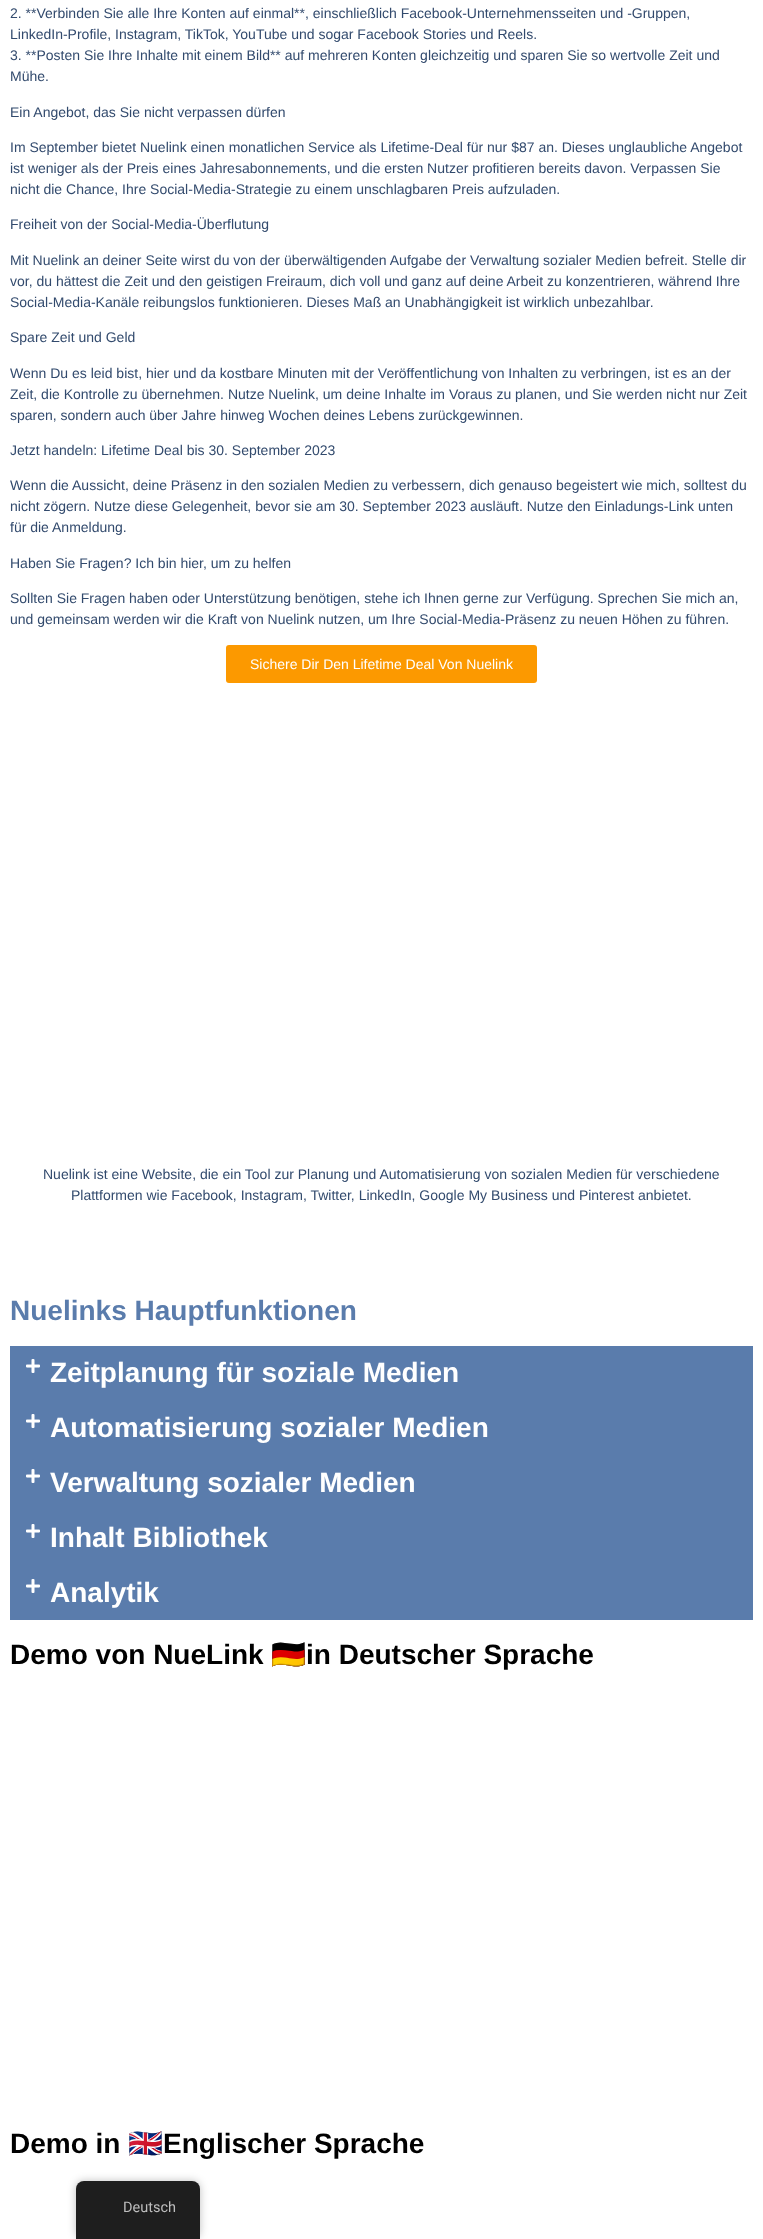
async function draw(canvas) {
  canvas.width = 763;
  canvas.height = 2239;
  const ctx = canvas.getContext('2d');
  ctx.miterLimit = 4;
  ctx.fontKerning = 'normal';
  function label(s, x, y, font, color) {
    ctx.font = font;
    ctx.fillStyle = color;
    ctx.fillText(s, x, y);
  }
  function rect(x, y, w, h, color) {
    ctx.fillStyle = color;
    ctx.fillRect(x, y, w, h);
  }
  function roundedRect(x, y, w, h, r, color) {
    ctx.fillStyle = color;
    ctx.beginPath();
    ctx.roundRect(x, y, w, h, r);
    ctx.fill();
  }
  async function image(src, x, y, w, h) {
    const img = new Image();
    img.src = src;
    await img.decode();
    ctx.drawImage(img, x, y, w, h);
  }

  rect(0, 0, 763, 2239, '#fff');
  label('2. **Verbinden Sie alle Ihre Konten auf einmal**, einschließlich Facebook-Unternehmensseiten und -Gruppen,', 10, 18, '14px Liberation Sans', '#324a6d');
  label('LinkedIn-Profile, Instagram, TikTok, YouTube und sogar Facebook Stories und Reels.', 10, 39, '14px Liberation Sans', '#324a6d');
  label('3. **Posten Sie Ihre Inhalte mit einem Bild** auf mehreren Konten gleichzeitig und sparen Sie so wertvolle Zeit und', 10, 60, '14px Liberation Sans', '#324a6d');
  label('Mühe.', 10, 81, '14px Liberation Sans', '#324a6d');
  label('Ein Angebot, das Sie nicht verpassen dürfen', 10, 117, '14px Liberation Sans', '#324a6d');
  label('Im September bietet Nuelink einen monatlichen Service als Lifetime-Deal für nur $87 an. Dieses unglaubliche Angebot', 10, 152, '14px Liberation Sans', '#324a6d');
  label('ist weniger als der Preis eines Jahresabonnements, und die ersten Nutzer profitieren bereits davon. Verpassen Sie', 10, 173, '14px Liberation Sans', '#324a6d');
  label('nicht die Chance, Ihre Social-Media-Strategie zu einem unschlagbaren Preis aufzuladen.', 10, 194, '14px Liberation Sans', '#324a6d');
  label('Freiheit von der Social-Media-Überflutung', 10, 229, '14px Liberation Sans', '#324a6d');
  label('Mit Nuelink an deiner Seite wirst du von der überwältigenden Aufgabe der Verwaltung sozialer Medien befreit. Stelle dir', 10, 265, '14px Liberation Sans', '#324a6d');
  label('vor, du hättest die Zeit und den geistigen Freiraum, dich voll und ganz auf deine Arbeit zu konzentrieren, während Ihre', 10, 286, '14px Liberation Sans', '#324a6d');
  label('Social-Media-Kanäle reibungslos funktionieren. Dieses Maß an Unabhängigkeit ist wirklich unbezahlbar.', 10, 307, '14px Liberation Sans', '#324a6d');
  label('Spare Zeit und Geld', 10, 342, '14px Liberation Sans', '#324a6d');
  label('Wenn Du es leid bist, hier und da kostbare Minuten mit der Veröffentlichung von Inhalten zu verbringen, ist es an der', 10, 378, '14px Liberation Sans', '#324a6d');
  label('Zeit, die Kontrolle zu übernehmen. Nutze Nuelink, um deine Inhalte im Voraus zu planen, und Sie werden nicht nur Zeit', 10, 399, '14px Liberation Sans', '#324a6d');
  label('sparen, sondern auch über Jahre hinweg Wochen deines Lebens zurückgewinnen.', 10, 420, '14px Liberation Sans', '#324a6d');
  label('Jetzt handeln: Lifetime Deal bis 30. September 2023', 10, 455, '14px Liberation Sans', '#324a6d');
  label('Wenn die Aussicht, deine Präsenz in den sozialen Medien zu verbessern, dich genauso begeistert wie mich, solltest du', 10, 490, '14px Liberation Sans', '#324a6d');
  label('nicht zögern. Nutze diese Gelegenheit, bevor sie am 30. September 2023 ausläuft. Nutze den Einladungs-Link unten', 10, 511, '14px Liberation Sans', '#324a6d');
  label('für die Anmeldung.', 10, 532, '14px Liberation Sans', '#324a6d');
  label('Haben Sie Fragen? Ich bin hier, um zu helfen', 10, 568, '14px Liberation Sans', '#324a6d');
  label('Sollten Sie Fragen haben oder Unterstützung benötigen, stehe ich Ihnen gerne zur Verfügung. Sprechen Sie mich an,', 10, 603, '14px Liberation Sans', '#324a6d');
  label('und gemeinsam werden wir die Kraft von Nuelink nutzen, um Ihre Social-Media-Präsenz zu neuen Höhen zu führen.', 10, 624, '14px Liberation Sans', '#324a6d');
  roundedRect(226, 645, 311, 38, 3, '#fc9900');
  label('Sichere Dir Den Lifetime Deal Von Nuelink', 250, 669, '14px Liberation Sans', '#fff');
  label('Nuelink ist eine Website, die ein Tool zur Planung und Automatisierung von sozialen Medien für verschiedene', 43, 1179, '14px Liberation Sans', '#324a6d');
  label('Plattformen wie Facebook, Instagram, Twitter, LinkedIn, Google My Business und Pinterest anbietet.', 71, 1200, '14px Liberation Sans', '#324a6d');
  label('Nuelinks Hauptfunktionen', 10, 1320, 'bold 28px Liberation Sans', '#5a7cac');
  rect(10, 1346, 743, 274, '#5a7cac');
  await image('assets/img1.png', 26, 1359, 14, 14);
  label('Zeitplanung für soziale Medien', 50, 1382, 'bold 28px Liberation Sans', '#fff');
  await image('assets/img1.png', 26, 1414, 14, 14);
  label('Automatisierung sozialer Medien', 50, 1437, 'bold 28px Liberation Sans', '#fff');
  await image('assets/img1.png', 26, 1469, 14, 14);
  label('Verwaltung sozialer Medien', 50, 1492, 'bold 28px Liberation Sans', '#fff');
  await image('assets/img1.png', 26, 1524, 14, 14);
  label('Inhalt Bibliothek', 50, 1547, 'bold 28px Liberation Sans', '#fff');
  await image('assets/img1.png', 26, 1579, 14, 14);
  label('Analytik', 50, 1602, 'bold 28px Liberation Sans', '#fff');
  label('Demo von NueLink', 10, 1664, 'bold 28px Liberation Sans', '#000');
  label('🇩🇪', 271, 1664, 'bold 28px Noto Color Emoji', '#000');
  label('in Deutscher Sprache', 306, 1664, 'bold 28px Liberation Sans', '#000');
  label('Demo in', 10, 2153, 'bold 28px Liberation Sans', '#000');
  label('🇬🇧', 128, 2153, 'bold 28px Noto Color Emoji', '#000');
  label('Englischer Sprache', 163, 2153, 'bold 28px Liberation Sans', '#000');
  ctx.fillStyle = '#00000040';
  ctx.filter = 'blur(4px)';
  ctx.beginPath();
  ctx.roundRect(76, 2181, 124, 58, 8);
  ctx.fill();
  ctx.filter = 'none';
  ctx.fillStyle = '#1e1e1e';
  ctx.beginPath();
  ctx.roundRect(76, 2181, 124, 58, [8, 8, 0, 0]);
  ctx.fill();
  label('Deutsch', 123, 2212, '14.5px Roboto', '#bdbdbd');
}

draw(document.querySelector('canvas'));
